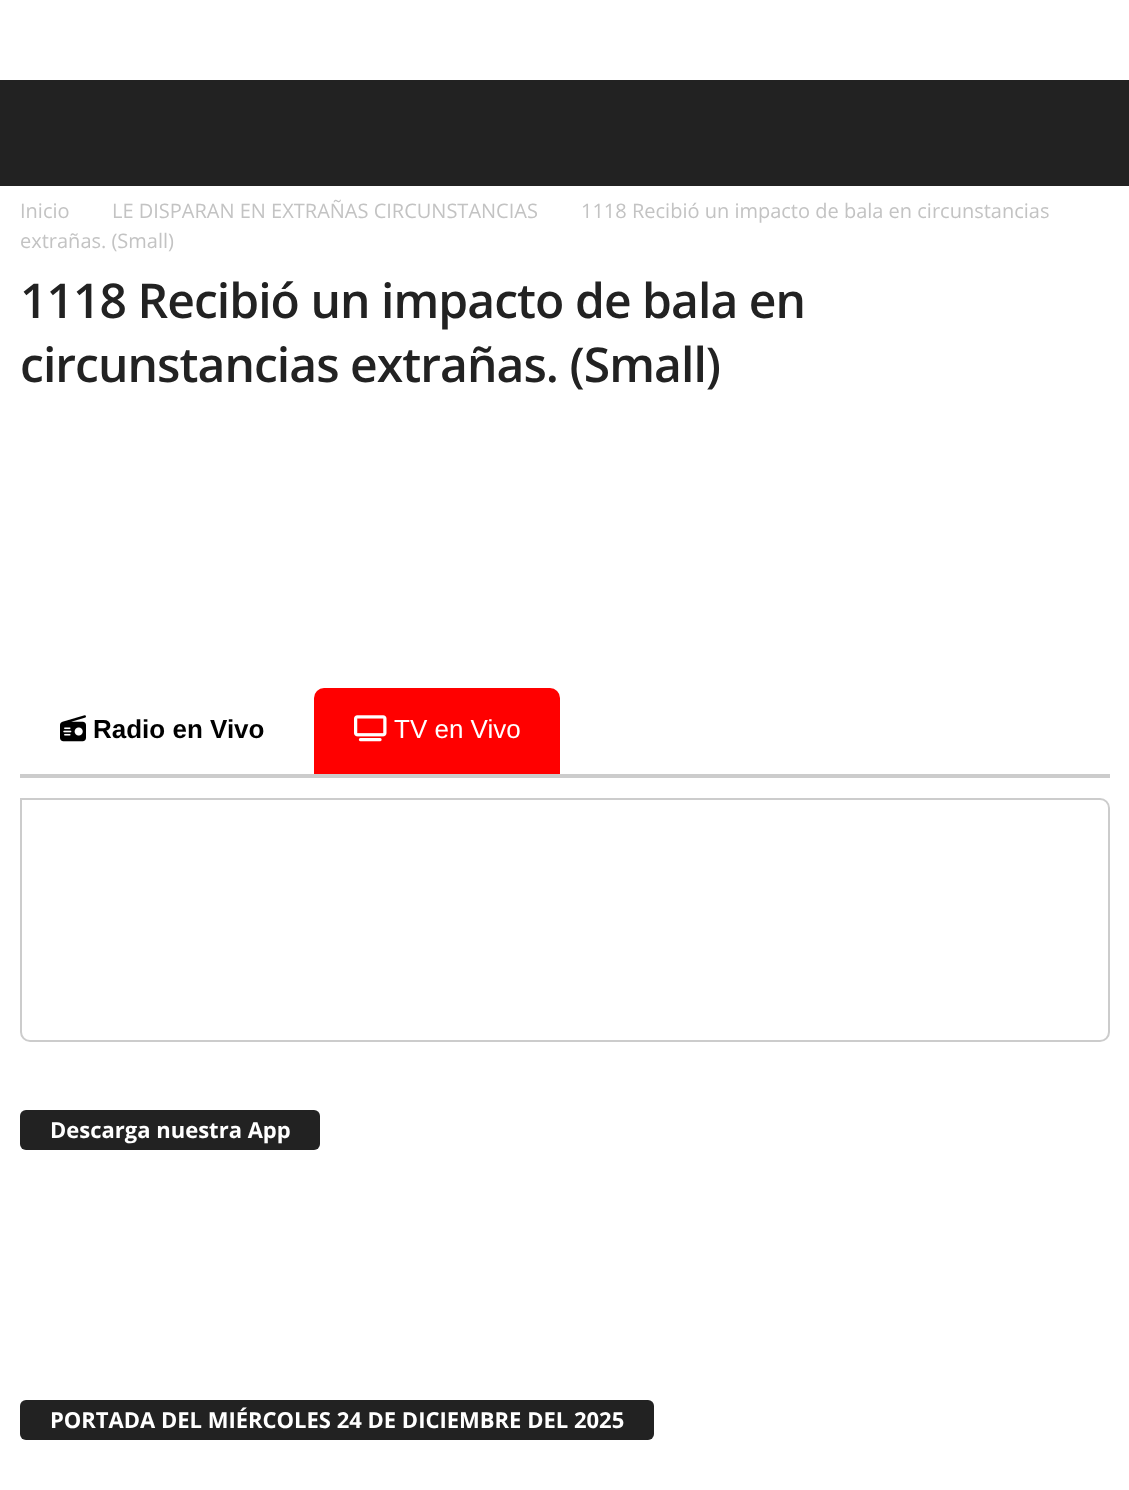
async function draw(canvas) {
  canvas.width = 1129;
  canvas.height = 1490;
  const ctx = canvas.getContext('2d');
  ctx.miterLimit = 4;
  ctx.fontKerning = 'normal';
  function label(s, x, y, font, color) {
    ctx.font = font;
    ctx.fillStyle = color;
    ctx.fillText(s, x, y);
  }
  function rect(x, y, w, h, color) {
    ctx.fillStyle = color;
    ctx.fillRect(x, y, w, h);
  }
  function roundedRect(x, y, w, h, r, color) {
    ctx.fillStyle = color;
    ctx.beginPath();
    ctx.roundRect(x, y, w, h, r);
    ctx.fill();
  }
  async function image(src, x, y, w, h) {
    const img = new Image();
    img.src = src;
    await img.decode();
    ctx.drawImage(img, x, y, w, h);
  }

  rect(0, 0, 1129, 1490, '#fff');
  rect(0, 80, 1129, 106, '#222');
  label('Inicio', 20, 218, '20px Open Sans', '#c3c3c3');
  label('LE DISPARAN EN EXTRAÑAS CIRCUNSTANCIAS', 112, 218, '20px Open Sans', '#c3c3c3');
  label('1118 Recibió un impacto de bala en circunstancias', 581, 218, '20px Open Sans', '#c3c3c3');
  label('extrañas. (Small)', 20, 248, '20px Open Sans', '#c3c3c3');
  ctx.letterSpacing = '-0.95px';
  label('1118 Recibió un impacto de bala en', 20, 318, '600 48px Open Sans', '#222');
  label('circunstancias extrañas. (Small)', 20, 382, '600 48px Open Sans', '#222');
  rect(20, 774, 1090, 4, '#ccc');
  await image('assets/img1.png', 60, 715, 26, 27);
  ctx.letterSpacing = '0px';
  label('Radio en Vivo', 93, 738, 'bold 26px Liberation Sans', '#000');
  ctx.fillStyle = '#f00';
  ctx.beginPath();
  ctx.roundRect(314, 688, 246, 86, [10, 10, 0, 0]);
  ctx.fill();
  await image('assets/img2.png', 354, 715, 33, 27);
  label('TV en Vivo', 394, 738, '26px Liberation Sans', '#fff');
  ctx.beginPath();
  ctx.roundRect(21, 799, 1088, 242, [0, 9, 9, 9]);
  ctx.strokeStyle = '#ccc';
  ctx.lineWidth = 2;
  ctx.stroke();
  roundedRect(20, 1110, 300, 40, 6, '#222');
  label('Descarga nuestra App', 50, 1138, 'bold 22px Open Sans', '#fff');
  roundedRect(20, 1400, 634, 40, 6, '#222');
  label('PORTADA DEL MIÉRCOLES 24 DE DICIEMBRE DEL 2025', 50, 1428, 'bold 22px Open Sans', '#fff');
}

draw(document.querySelector('canvas'));
